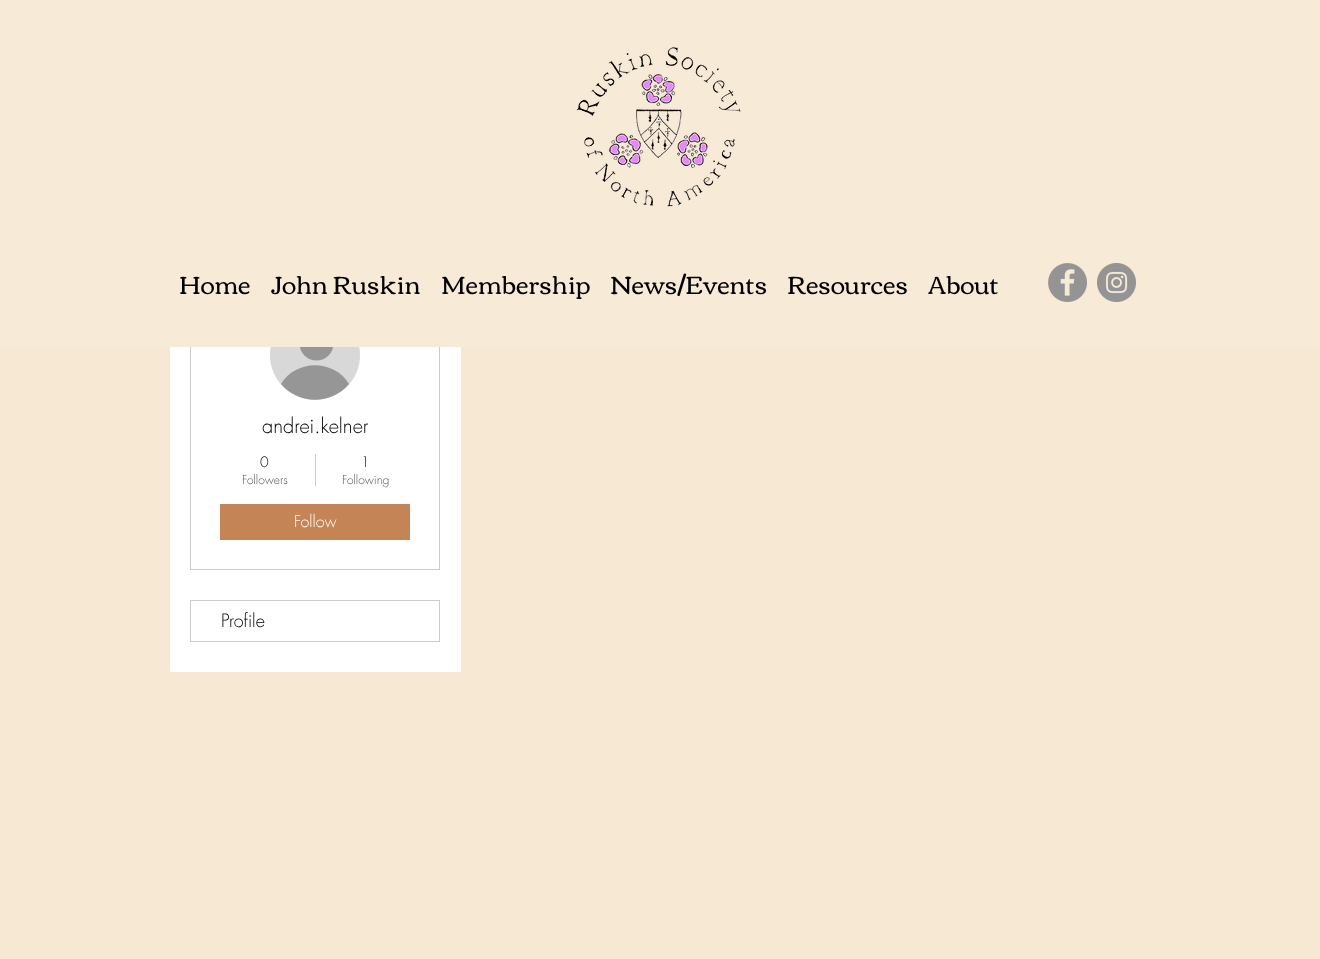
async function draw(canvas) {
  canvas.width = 1320;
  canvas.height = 959;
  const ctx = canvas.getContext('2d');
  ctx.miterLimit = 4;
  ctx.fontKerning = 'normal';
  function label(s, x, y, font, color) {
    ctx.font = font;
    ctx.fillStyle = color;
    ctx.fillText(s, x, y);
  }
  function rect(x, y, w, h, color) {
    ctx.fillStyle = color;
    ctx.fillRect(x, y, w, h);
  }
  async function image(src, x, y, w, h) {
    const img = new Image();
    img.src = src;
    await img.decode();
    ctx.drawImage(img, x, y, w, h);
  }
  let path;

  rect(0, 0, 1320, 959, '#f7e8d3');
  rect(170, 347, 291, 325, '#fff');
  ctx.strokeStyle = '#ccc';
  ctx.strokeRect(190.5, 280.5, 249, 289);
  ctx.fillStyle = '#d8d8d8';
  ctx.beginPath();
  ctx.arc(315, 355, 45, 0, 2 * Math.PI);
  ctx.fill();
  ctx.fillStyle = '#969696';
  ctx.beginPath();
  ctx.arc(316.5, 343.5, 17, 0, 2 * Math.PI);
  ctx.fill();
  rect(0, 0, 1320, 347, '#f7ead7');
  await image('assets/img1.png', 576, 47, 165, 160);
  label('Home', 179, 294, '25px Corben', '#000');
  label('John Ruskin', 271, 294, '25px Corben', '#000');
  label('Membership', 441, 294, '25px Corben', '#000');
  label('News/Events', 610, 294, '25px Corben', '#000');
  label('Resources', 787, 294, '25px Corben', '#000');
  label('About', 928, 294, '25px Corben', '#000');
  await image('assets/img2.png', 1048, 263, 39, 39);
  await image('assets/img3.png', 1097, 263, 39, 39);
  ctx.fillStyle = '#969696';
  path = new Path2D('M349 384C331 405 299 405 281 384C296 359 334 359 349 384Z');
  ctx.fill(path);
  label('andrei.kelner', 262, 433, '300 20px futura', '#000');
  label('0', 260, 467, '300 14px futura', '#000');
  label('Followers', 242, 484, '300 12px futura', '#4d4d4d');
  rect(315, 454, 1, 32, '#ccc');
  label('1', 361, 467, '300 14px futura', '#000');
  label('Following', 342, 484, '300 12px futura', '#4d4d4d');
  rect(220, 504, 190, 36, '#c58455');
  label('Follow', 294, 527, '300 16px futura', '#fff');
  ctx.strokeRect(190.5, 600.5, 249, 41);
  label('Profile', 221, 627, '300 18px futura', '#000');
}

draw(document.querySelector('canvas'));
